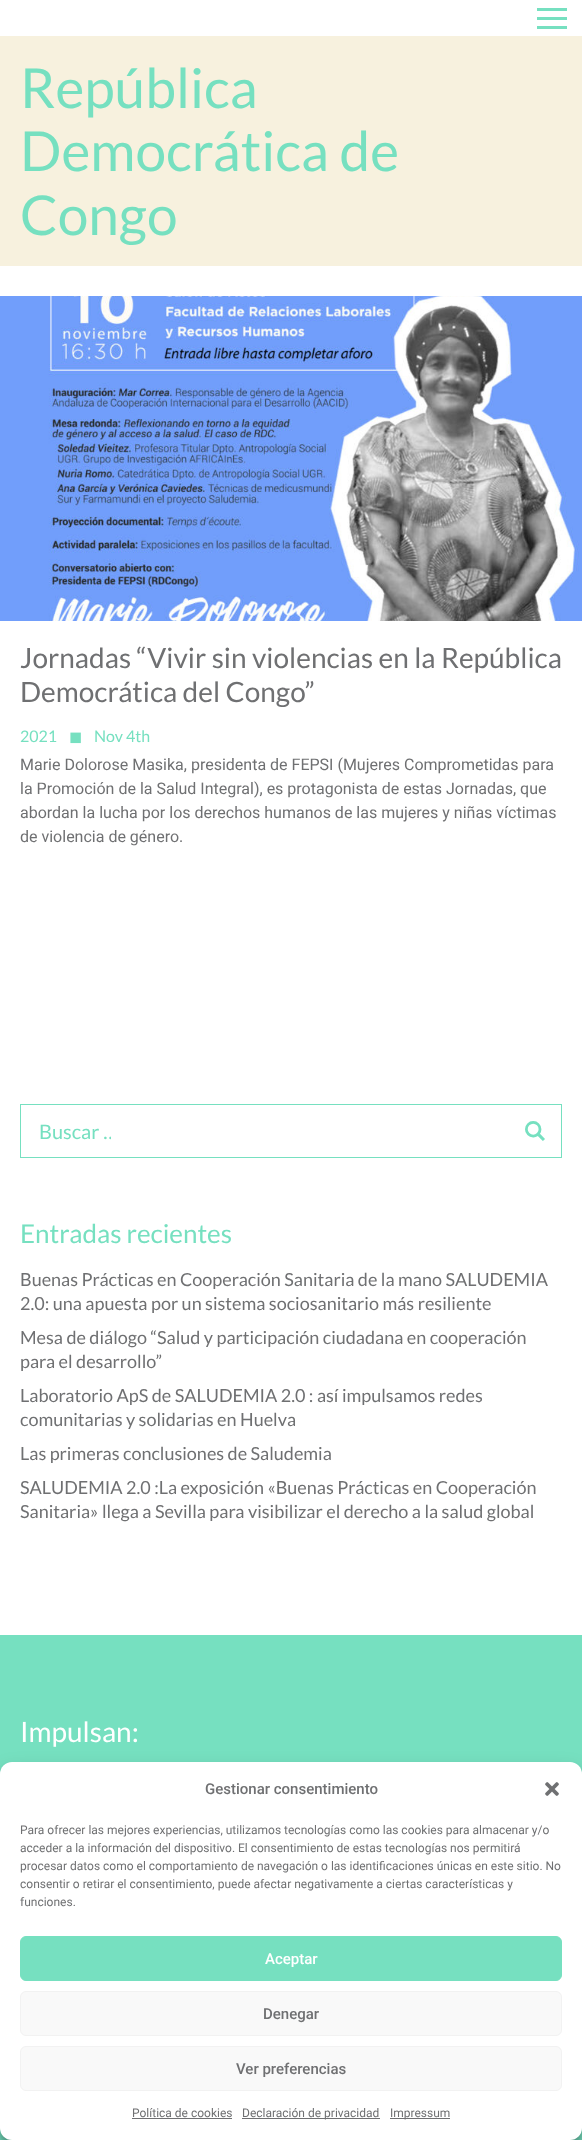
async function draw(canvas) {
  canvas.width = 582;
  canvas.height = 2140;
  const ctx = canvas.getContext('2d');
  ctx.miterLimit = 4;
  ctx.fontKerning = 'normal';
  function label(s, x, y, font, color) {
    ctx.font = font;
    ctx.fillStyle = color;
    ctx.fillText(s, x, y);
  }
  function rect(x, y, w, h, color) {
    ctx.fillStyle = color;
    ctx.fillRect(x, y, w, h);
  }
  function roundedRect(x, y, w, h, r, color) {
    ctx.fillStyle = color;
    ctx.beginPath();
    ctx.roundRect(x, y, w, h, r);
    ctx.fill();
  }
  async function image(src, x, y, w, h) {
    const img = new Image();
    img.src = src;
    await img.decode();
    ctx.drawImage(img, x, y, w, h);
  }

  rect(0, 0, 582, 2140, '#fff');
  rect(537, 8, 30, 3, '#76e0c0');
  rect(537, 17, 30, 3, '#76e0c0');
  rect(537, 26, 30, 3, '#76e0c0');
  rect(0, 36, 582, 230, '#f7f1de');
  label('República', 20, 108, '55px Lato', '#76e0c0');
  label('Democrática de', 20, 171, '55px Lato', '#76e0c0');
  label('Congo', 20, 235, '55px Lato', '#76e0c0');
  await image('assets/img1.png', 0, 296, 582, 325);
  label('Jornadas “Vivir sin violencias en la República', 20, 668, '28px Lato', '#6f7072');
  label('Democrática del Congo”', 20, 702, '28px Lato', '#6f7072');
  label('2021', 20, 742, '16px Lato', '#76e0c0');
  label('◼', 69, 742, '16px DejaVu Sans', '#76e0c0');
  label('Nov 4th', 94, 742, '16px Lato', '#76e0c0');
  label('Marie Dolorose Masika, presidenta de FEPSI (Mujeres Comprometidas para', 20, 770, '16px Roboto', '#6f7072');
  label('la Promoción de la Salud Integral), es protagonista de estas Jornadas, que', 20, 794, '16px Roboto', '#6f7072');
  label('abordan la lucha por los derechos humanos de las mujeres y niñas víctimas', 20, 818, '16px Roboto', '#6f7072');
  label('de violencia de género.', 20, 842, '16px Roboto', '#6f7072');
  ctx.strokeStyle = '#76e0c0';
  ctx.strokeRect(20.5, 1104.5, 541, 53);
  ctx.save();
  ctx.beginPath();
  ctx.rect(39, 1119, 72, 24);
  ctx.clip();
  label('Buscar …', 39, 1139, '20px Lato', '#76e0c0');
  ctx.restore();
  label('🔍', 525, 1138, '20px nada', '#76e0c0');
  label('Entradas recientes', 20, 1243, '26px Lato', '#76e0c0');
  label('Buenas Prácticas en Cooperación Sanitaria de la mano SALUDEMIA', 20, 1286, '18px Lato', '#6f7072');
  label('2.0: una apuesta por un sistema sociosanitario más resiliente', 20, 1310, '18px Lato', '#6f7072');
  label('Mesa de diálogo “Salud y participación ciudadana en cooperación', 20, 1344, '18px Lato', '#6f7072');
  label('para el desarrollo”', 20, 1368, '18px Lato', '#6f7072');
  label('Laboratorio ApS de SALUDEMIA 2.0 : así impulsamos redes', 20, 1402, '18px Lato', '#6f7072');
  label('comunitarias y solidarias en Huelva', 20, 1426, '18px Lato', '#6f7072');
  label('Las primeras conclusiones de Saludemia', 20, 1460, '18px Lato', '#6f7072');
  label('SALUDEMIA 2.0 :La exposición «Buenas Prácticas en Cooperación', 20, 1494, '18px Lato', '#6f7072');
  label('Sanitaria» llega a Sevilla para visibilizar el derecho a la salud global', 20, 1518, '18px Lato', '#6f7072');
  rect(0, 1635, 582, 505, '#76e0c0');
  label('Impulsan:', 20, 1742, '28px Lato', '#fff');
  ctx.fillStyle = '#0000003b';
  ctx.filter = 'blur(3px)';
  ctx.beginPath();
  ctx.roundRect(0, 1768, 582, 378, 12);
  ctx.fill();
  ctx.filter = 'none';
  ctx.fillStyle = '#00000030';
  ctx.filter = 'blur(10px)';
  ctx.beginPath();
  ctx.roundRect(0, 1772, 582, 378, 12);
  ctx.fill();
  ctx.filter = 'none';
  roundedRect(0, 1762, 582, 378, 12, '#fff');
  label('Gestionar consentimiento', 205, 1794, '500 15px Roboto', '#6f7072');
  await image('assets/img2.png', 545, 1782, 14, 14);
  label('Para ofrecer las mejores experiencias, utilizamos tecnologías como las cookies para almacenar y/o', 20, 1834, '12px Roboto', '#6f7072');
  label('acceder a la información del dispositivo. El consentimiento de estas tecnologías nos permitirá', 20, 1852, '12px Roboto', '#6f7072');
  label('procesar datos como el comportamiento de navegación o las identificaciones únicas en este sitio. No', 20, 1870, '12px Roboto', '#6f7072');
  label('consentir o retirar el consentimiento, puede afectar negativamente a ciertas características y', 20, 1888, '12px Roboto', '#6f7072');
  label('funciones.', 20, 1906, '12px Roboto', '#6f7072');
  ctx.fillStyle = '#76e0c0';
  ctx.beginPath();
  ctx.roundRect(20.5, 1936.5, 541, 44, 5.5);
  ctx.fill();
  ctx.stroke();
  label('Aceptar', 265, 1964, '500 15px Roboto', '#fff');
  ctx.fillStyle = '#f9f9f9';
  ctx.beginPath();
  ctx.roundRect(20.5, 1991.5, 541, 44, 5.5);
  ctx.fill();
  ctx.strokeStyle = '#f2f2f2';
  ctx.stroke();
  label('Denegar', 263, 2019, '500 15px Roboto', '#6f7072');
  ctx.fillStyle = '#f9f9f9';
  ctx.beginPath();
  ctx.roundRect(20.5, 2046.5, 541, 44, 5.5);
  ctx.fill();
  ctx.stroke();
  label('Ver preferencias', 236, 2074, '500 15px Roboto', '#6f7072');
  label('Política de cookies', 132, 2117, '12px Roboto', '#6f7072');
  rect(132, 2118, 100, 1, '#6f7072');
  rect(242, 2118, 138, 1, '#6f7072');
  label('Declaración de privacidad', 242, 2117, '12px Roboto', '#6f7072');
  rect(390, 2118, 60, 1, '#6f7072');
  label('Impressum', 390, 2117, '12px Roboto', '#6f7072');
}

draw(document.querySelector('canvas'));
